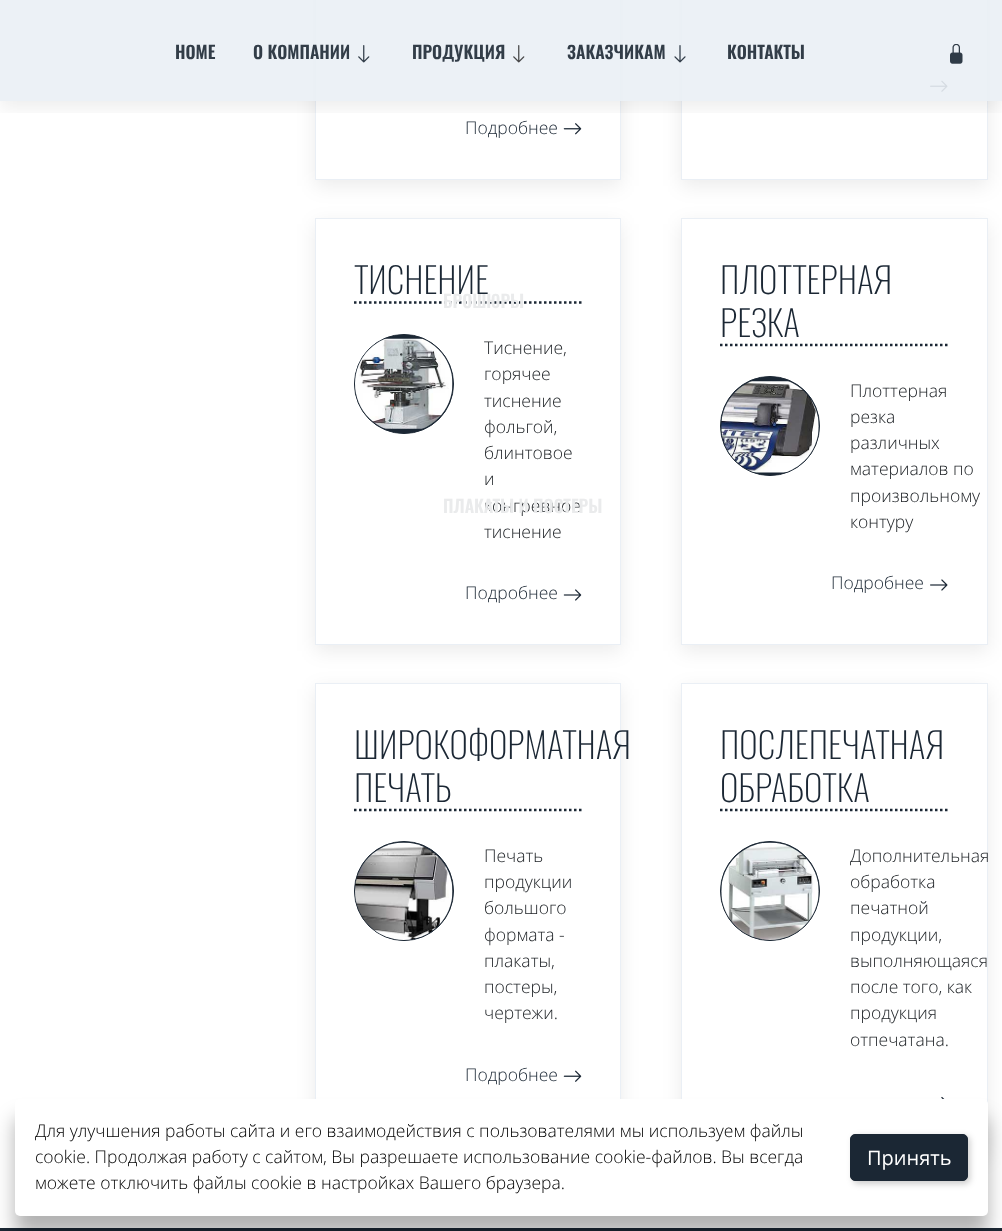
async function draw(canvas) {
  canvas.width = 1002;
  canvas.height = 1231;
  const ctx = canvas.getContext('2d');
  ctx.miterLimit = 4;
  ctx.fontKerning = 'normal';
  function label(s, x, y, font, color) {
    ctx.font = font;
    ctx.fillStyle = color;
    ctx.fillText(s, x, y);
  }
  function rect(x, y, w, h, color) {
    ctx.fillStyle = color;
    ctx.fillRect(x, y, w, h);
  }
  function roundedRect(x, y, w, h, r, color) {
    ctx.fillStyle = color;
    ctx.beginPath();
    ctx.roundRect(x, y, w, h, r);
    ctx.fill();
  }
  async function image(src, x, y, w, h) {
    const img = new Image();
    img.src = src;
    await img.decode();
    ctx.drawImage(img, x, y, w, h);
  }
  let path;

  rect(0, 0, 1002, 1231, '#fff');
  ctx.save();
  path = new Path2D('M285 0H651V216H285ZM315-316H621V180H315Z');
  ctx.clip(path, 'evenodd');
  ctx.fillStyle = '#00000014';
  ctx.filter = 'blur(9.5px)';
  ctx.beginPath();
  ctx.rect(315, -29, 306, 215);
  ctx.fill();
  ctx.filter = 'none';
  ctx.restore();
  ctx.strokeStyle = '#eaeff5';
  ctx.strokeRect(315.5, -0.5, 305, 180);
  await image('assets/img5.png', 563, 123, 19, 12);
  ctx.save();
  path = new Path2D('M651 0H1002V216H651ZM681-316H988V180H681Z');
  ctx.clip(path, 'evenodd');
  ctx.fillStyle = '#00000014';
  ctx.filter = 'blur(9.5px)';
  ctx.beginPath();
  ctx.rect(681, -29, 307, 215);
  ctx.fill();
  ctx.filter = 'none';
  ctx.restore();
  ctx.strokeRect(681.5, -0.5, 306, 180);
  await image('assets/img6.png', 930, 80, 18, 12);
  ctx.save();
  ctx.beginPath();
  ctx.rect(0, 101, 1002, 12);
  ctx.clip();
  ctx.fillStyle = '#00000012';
  ctx.filter = 'blur(9.5px)';
  ctx.beginPath();
  ctx.rect(0, 6, 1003, 102);
  ctx.fill();
  ctx.filter = 'none';
  ctx.restore();
  rect(0, 0, 1002, 101, '#eaeff5e6');
  label('HOME', 175, 59, '600 17.5px Oswald', '#323d48');
  label('О КОМПАНИИ', 253, 59, '600 17.5px Oswald', '#323d48');
  await image('assets/img1.png', 358, 45, 12, 18);
  label('ПРОДУКЦИЯ', 412, 59, '600 17.5px Oswald', '#323d48');
  await image('assets/img2.png', 513, 45, 12, 18);
  ctx.save();
  path = new Path2D('M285 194H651V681H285ZM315 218H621V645H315Z');
  ctx.clip(path, 'evenodd');
  ctx.fillStyle = '#00000014';
  ctx.filter = 'blur(9.5px)';
  ctx.beginPath();
  ctx.rect(315, 224, 306, 427);
  ctx.fill();
  ctx.filter = 'none';
  ctx.restore();
  ctx.strokeRect(315.5, 218.5, 305, 426);
  path = new Path2D('M354 302.5H582.5');
  ctx.strokeStyle = '#1b2734';
  ctx.lineWidth = 2.5;
  ctx.setLineDash([2.5, 2.5]);
  ctx.stroke(path);
  label('БРОШЮРЫ', 443, 308, '600 17.5px Oswald', '#eaebec');
  label('конгревное', 484, 512, '300 17.5px Open Sans', '#212529');
  label('ПЛАКАТЫ И ПОСТЕРЫ', 443, 513, '600 17.5px Oswald', '#eaebec');
  label('ЗАКАЗЧИКАМ', 567, 59, '600 17.5px Oswald', '#323d48');
  await image('assets/img3.png', 674, 45, 12, 18);
  label('КОНТАКТЫ', 727, 59, '600 17.5px Oswald', '#323d48');
  await image('assets/img4.png', 950, 44, 13, 20);
  label('Подробнее', 465, 134, '300 17.5px Open Sans', '#1b2734');
  label('ТИСНЕНИЕ', 354, 294, '200 35.5px Oswald', '#1b2734');
  ctx.beginPath();
  ctx.arc(404, 384, 49.5, 0, 2 * Math.PI);
  ctx.fill();
  ctx.lineWidth = 1;
  ctx.setLineDash([]);
  ctx.stroke();
  await image('assets/img7.png', 355, 338, 98, 91);
  label('Тиснение,', 484, 354, '300 17.5px Open Sans', '#212529');
  label('горячее', 484, 380, '300 17.5px Open Sans', '#212529');
  label('тиснение', 484, 407, '300 17.5px Open Sans', '#212529');
  label('фольгой,', 484, 433, '300 17.5px Open Sans', '#212529');
  label('блинтовое', 484, 459, '300 17.5px Open Sans', '#212529');
  label('и', 484, 485, '300 17.5px Open Sans', '#212529');
  label('тиснение', 484, 538, '300 17.5px Open Sans', '#212529');
  label('Подробнее', 465, 599, '300 17.5px Open Sans', '#1b2734');
  await image('assets/img8.png', 563, 589, 19, 12);
  ctx.save();
  path = new Path2D('M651 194H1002V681H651ZM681 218H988V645H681Z');
  ctx.clip(path, 'evenodd');
  ctx.fillStyle = '#00000014';
  ctx.filter = 'blur(9.5px)';
  ctx.beginPath();
  ctx.rect(681, 224, 307, 427);
  ctx.fill();
  ctx.filter = 'none';
  ctx.restore();
  ctx.strokeStyle = '#eaeff5';
  ctx.strokeRect(681.5, 218.5, 306, 426);
  label('ПЛОТТЕРНАЯ', 720, 294, '200 35.5px Oswald', '#1b2734');
  label('РЕЗКА', 720, 337, '200 35.5px Oswald', '#1b2734');
  path = new Path2D('M720 345H949');
  ctx.strokeStyle = '#1b2734';
  ctx.lineWidth = 2.5;
  ctx.setLineDash([2.5, 2.5]);
  ctx.stroke(path);
  ctx.beginPath();
  ctx.arc(770, 426, 49.5, 0, 2 * Math.PI);
  ctx.fill();
  ctx.lineWidth = 1;
  ctx.setLineDash([]);
  ctx.stroke();
  await image('assets/img9.png', 721, 381, 98, 92);
  label('Плоттерная', 850, 397, '300 17.5px Open Sans', '#212529');
  label('резка', 850, 423, '300 17.5px Open Sans', '#212529');
  label('различных', 850, 449, '300 17.5px Open Sans', '#212529');
  label('материалов по', 850, 475, '300 17.5px Open Sans', '#212529');
  label('произвольному', 850, 502, '300 17.5px Open Sans', '#212529');
  label('контуру', 850, 528, '300 17.5px Open Sans', '#212529');
  label('Подробнее', 831, 589, '300 17.5px Open Sans', '#1b2734');
  await image('assets/img10.png', 930, 579, 18, 12);
  ctx.save();
  path = new Path2D('M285 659H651V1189H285ZM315 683H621V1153H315Z');
  ctx.clip(path, 'evenodd');
  ctx.fillStyle = '#00000014';
  ctx.filter = 'blur(9.5px)';
  ctx.beginPath();
  ctx.rect(315, 689, 306, 470);
  ctx.fill();
  ctx.filter = 'none';
  ctx.restore();
  ctx.strokeStyle = '#eaeff5';
  ctx.strokeRect(315.5, 683.5, 305, 469);
  label('ШИРОКОФОРМАТНАЯ', 354, 759, '200 35.5px Oswald', '#1b2734');
  label('ПЕЧАТЬ', 354, 802, '200 35.5px Oswald', '#1b2734');
  path = new Path2D('M354 810H582.5');
  ctx.strokeStyle = '#1b2734';
  ctx.lineWidth = 2.5;
  ctx.setLineDash([2.5, 2.5]);
  ctx.stroke(path);
  ctx.beginPath();
  ctx.arc(404, 891, 49.5, 0, 2 * Math.PI);
  ctx.fill();
  ctx.lineWidth = 1;
  ctx.setLineDash([]);
  ctx.stroke();
  await image('assets/img11.png', 355, 842, 98, 98);
  label('Печать', 484, 862, '300 17.5px Open Sans', '#212529');
  label('продукции', 484, 888, '300 17.5px Open Sans', '#212529');
  label('большого', 484, 914, '300 17.5px Open Sans', '#212529');
  label('формата -', 484, 941, '300 17.5px Open Sans', '#212529');
  label('плакаты,', 484, 967, '300 17.5px Open Sans', '#212529');
  label('постеры,', 484, 993, '300 17.5px Open Sans', '#212529');
  label('чертежи.', 484, 1019, '300 17.5px Open Sans', '#212529');
  label('Подробнее', 465, 1081, '300 17.5px Open Sans', '#1b2734');
  await image('assets/img12.png', 563, 1070, 19, 12);
  ctx.save();
  path = new Path2D('M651 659H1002V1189H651ZM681 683H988V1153H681Z');
  ctx.clip(path, 'evenodd');
  ctx.fillStyle = '#00000014';
  ctx.filter = 'blur(9.5px)';
  ctx.beginPath();
  ctx.rect(681, 689, 307, 470);
  ctx.fill();
  ctx.filter = 'none';
  ctx.restore();
  ctx.strokeStyle = '#eaeff5';
  ctx.strokeRect(681.5, 683.5, 306, 469);
  label('ПОСЛЕПЕЧАТНАЯ', 720, 759, '200 35.5px Oswald', '#1b2734');
  label('ОБРАБОТКА', 720, 802, '200 35.5px Oswald', '#1b2734');
  path = new Path2D('M720 810H949');
  ctx.strokeStyle = '#1b2734';
  ctx.lineWidth = 2.5;
  ctx.setLineDash([2.5, 2.5]);
  ctx.stroke(path);
  ctx.beginPath();
  ctx.arc(770, 891, 49.5, 0, 2 * Math.PI);
  ctx.fill();
  ctx.lineWidth = 1;
  ctx.setLineDash([]);
  ctx.stroke();
  await image('assets/img13.png', 721, 842, 98, 98);
  label('Дополнительная', 850, 862, '300 17.5px Open Sans', '#212529');
  label('обработка', 850, 888, '300 17.5px Open Sans', '#212529');
  label('печатной', 850, 914, '300 17.5px Open Sans', '#212529');
  label('продукции,', 850, 941, '300 17.5px Open Sans', '#212529');
  label('выполняющаяся', 850, 967, '300 17.5px Open Sans', '#212529');
  label('после того, как', 850, 993, '300 17.5px Open Sans', '#212529');
  label('продукция', 850, 1019, '300 17.5px Open Sans', '#212529');
  label('отпечатана.', 850, 1046, '300 17.5px Open Sans', '#212529');
  await image('assets/img14.png', 941, 1096, 4, 3);
  rect(0, 1228, 1002, 3, '#1b2734');
  ctx.fillStyle = '#0000004d';
  ctx.filter = 'blur(9.5px)';
  ctx.beginPath();
  ctx.roundRect(15, 1118, 973, 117, 5);
  ctx.fill();
  ctx.filter = 'none';
  roundedRect(15, 1099, 973, 117, 5, '#fff');
  label('Для улучшения работы сайта и его взаимодействия с пользователями мы используем файлы', 35, 1137, '300 17.5px Open Sans', '#000');
  label('cookie. Продолжая работу с сайтом, Вы разрешаете использование cookie-файлов. Вы всегда', 35, 1163, '300 17.5px Open Sans', '#000');
  label('можете отключить файлы cookie в настройках Вашего браузера.', 35, 1189, '300 17.5px Open Sans', '#000');
  ctx.fillStyle = '#00000033';
  ctx.filter = 'blur(3px)';
  ctx.beginPath();
  ctx.roundRect(853, 1136, 117, 48, 5);
  ctx.fill();
  ctx.filter = 'none';
  ctx.fillStyle = '#1b2734';
  ctx.beginPath();
  ctx.roundRect(850.5, 1134.5, 117, 46, 4.5);
  ctx.fill();
  ctx.stroke();
  label('Принять', 867, 1165, '20px Open Sans', '#fff');
}

draw(document.querySelector('canvas'));
